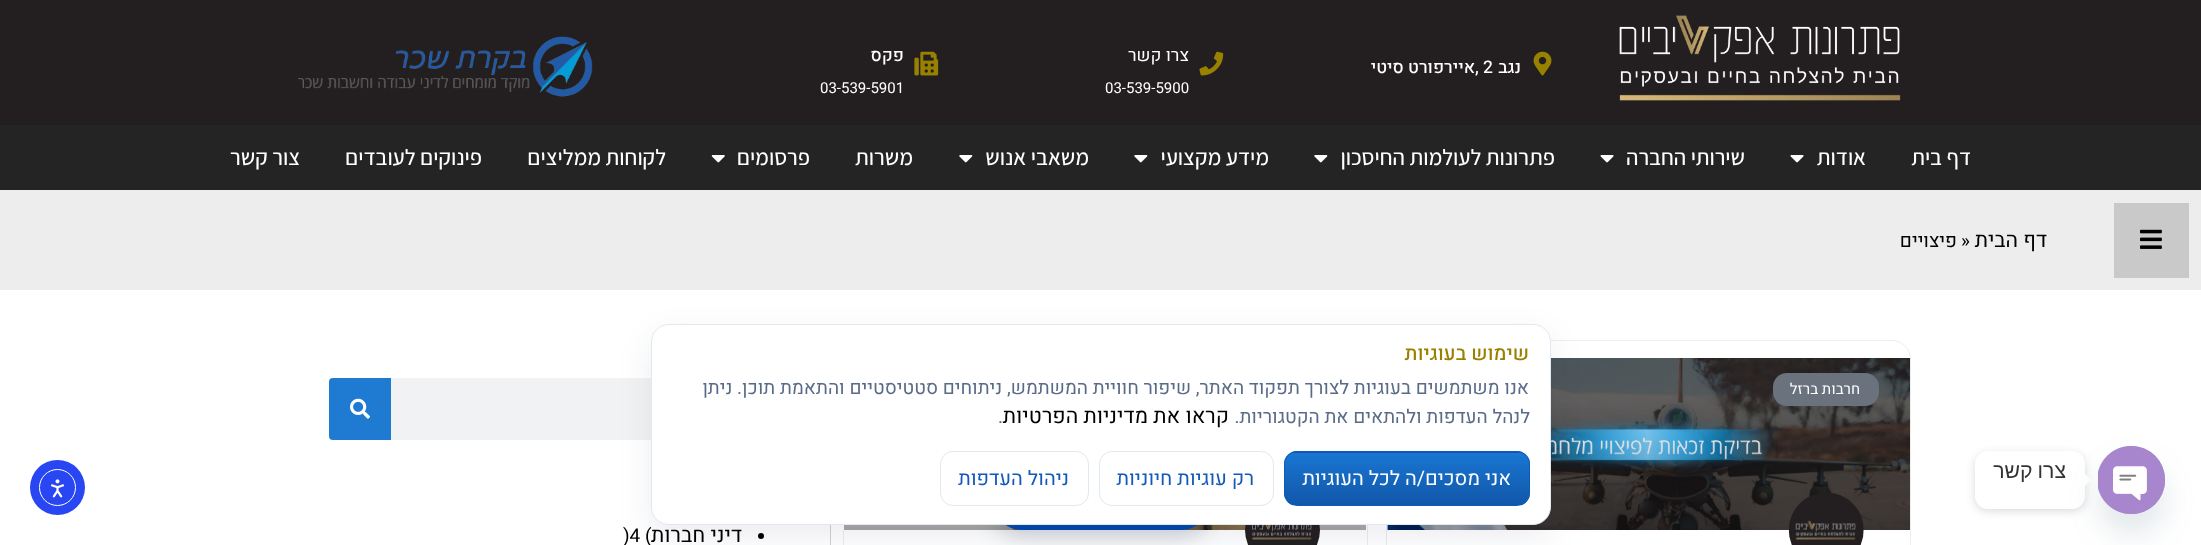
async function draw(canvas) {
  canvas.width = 2201;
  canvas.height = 545;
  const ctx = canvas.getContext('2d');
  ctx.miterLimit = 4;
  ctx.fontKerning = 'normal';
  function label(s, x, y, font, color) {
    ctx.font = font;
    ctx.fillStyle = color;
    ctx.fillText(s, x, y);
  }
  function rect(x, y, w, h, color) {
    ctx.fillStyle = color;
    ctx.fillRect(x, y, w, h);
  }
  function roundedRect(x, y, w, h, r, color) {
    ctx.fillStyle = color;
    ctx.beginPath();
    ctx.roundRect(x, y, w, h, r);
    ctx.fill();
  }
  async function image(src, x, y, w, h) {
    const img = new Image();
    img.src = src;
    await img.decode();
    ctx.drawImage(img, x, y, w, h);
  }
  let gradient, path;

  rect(0, 0, 2201, 545, '#fff');
  rect(0, 0, 2201, 125, '#231f20');
  await image('assets/img1.png', 1619, 15, 282, 86);
  await image('assets/img2.png', 1533, 51, 19, 25);
  ctx.direction = 'rtl';
  label('נגב', 1521, 73, '500 17.5px Heebo', '#fff');
  ctx.direction = 'ltr';
  label(', 2', 1475, 73, '500 17.5px Heebo', '#fff');
  ctx.direction = 'rtl';
  label('איירפורט סיטי', 1475, 73, '500 17.5px Heebo', '#fff');
  await image('assets/img3.png', 1199, 51, 25, 25);
  label('צרו קשר', 1189, 61, '17.5px Heebo', '#fff');
  ctx.direction = 'ltr';
  label('03-539-5900', 1105, 93, '15px Heebo', '#fff');
  await image('assets/img4.png', 914, 51, 25, 25);
  ctx.direction = 'rtl';
  label('פקס', 904, 61, '500 17.5px Heebo', '#fff');
  ctx.direction = 'ltr';
  label('03-539-5901', 820, 93, '15px Heebo', '#fff');
  await image('assets/img5.png', 298, 36, 295, 61);
  rect(0, 125, 2201, 65, '#242424');
  ctx.direction = 'rtl';
  label('דף בית', 1971, 165, '500 22.5px Assistant', '#fff');
  label('אודות', 1866, 165, '500 22.5px Assistant', '#fff');
  await image('assets/img6.png', 1790, 155, 14, 8);
  label('שירותי החברה', 1745, 165, '500 22.5px Assistant', '#fff');
  await image('assets/img6.png', 1600, 155, 14, 8);
  label('פתרונות לעולמות החיסכון', 1555, 165, '500 22.5px Assistant', '#fff');
  await image('assets/img7.png', 1314, 155, 14, 8);
  label('מידע מקצועי', 1269, 165, '500 22.5px Assistant', '#fff');
  await image('assets/img7.png', 1134, 155, 14, 8);
  label('משאבי אנוש', 1089, 165, '500 22.5px Assistant', '#fff');
  await image('assets/img7.png', 959, 155, 14, 8);
  label('משרות', 913, 165, '500 22.5px Assistant', '#fff');
  label('פרסומים', 810, 165, '500 22.5px Assistant', '#fff');
  await image('assets/img8.png', 711, 155, 14, 8);
  label('לקוחות ממליצים', 666, 165, '500 22.5px Assistant', '#fff');
  label('פינוקים לעובדים', 482, 165, '500 22.5px Assistant', '#fff');
  label('צור קשר', 300, 165, '500 22.5px Assistant', '#fff');
  rect(0, 190, 2201, 100, '#ededed');
  rect(2114, 203, 75, 75, '#c9c9c9');
  await image('assets/img9.png', 2140, 229, 22, 20);
  label('דף הבית', 2047, 247, '21.25px Heebo', '#000');
  ctx.direction = 'ltr';
  label('»', 1961, 247, '19px Heebo', '#000');
  ctx.direction = 'rtl';
  label('פיצויים', 1957, 247, '19px Heebo', '#000');
  ctx.beginPath();
  ctx.roundRect(1386.5, 340.5, 524, 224, 18.5);
  ctx.strokeStyle = '#ededed';
  ctx.stroke();
  await image('assets/img10.png', 1387, 358, 523, 172);
  roundedRect(1773, 373, 106, 33, 14, '#69727d');
  label('חרבות ברזל', 1860, 394, '15px Heebo', '#fff');
  await image('assets/img11.png', 1788, 493, 76, 52);
  ctx.strokeRect(843.5, 340.5, 524, 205);
  await image('assets/img12.png', 843, 525, 524, 5);
  await image('assets/img13.png', 1245, 525, 75, 20);
  rect(830, 525, 1, 20, '#d1d1d1');
  roundedRect(329, 378, 464, 62, 4, '#f1f2f3');
  ctx.fillStyle = '#1f7bd1';
  ctx.beginPath();
  ctx.roundRect(329, 378, 62, 62, [4, 0, 0, 4]);
  ctx.fill();
  await image('assets/img14.png', 350, 398, 20, 21);
  ctx.fillStyle = '#000';
  ctx.beginPath();
  ctx.arc(761, 536, 3, 0, 2 * Math.PI);
  ctx.fill();
  label('דיני חברות', 742, 542, '21.25px Heebo', '#000');
  ctx.direction = 'ltr';
  label(')4 (', 623, 542, '19px Heebo', '#000');
  ctx.fillStyle = '#0a1e3c2e';
  ctx.filter = 'blur(11px)';
  ctx.beginPath();
  ctx.roundRect(994, 483, 215, 55, 27.5);
  ctx.fill();
  ctx.filter = 'none';
  roundedRect(994, 475, 215, 55, 27.5, '#004aad');
  ctx.fillStyle = '#0a1e3c14';
  ctx.filter = 'blur(16px)';
  ctx.beginPath();
  ctx.roundRect(651, 336, 900, 202, 18);
  ctx.fill();
  ctx.filter = 'none';
  ctx.fillStyle = '#fff';
  ctx.beginPath();
  ctx.roundRect(651.5, 324.5, 899, 200, 17.5);
  ctx.fill();
  ctx.strokeStyle = '#e2e8f0';
  ctx.stroke();
  ctx.direction = 'rtl';
  label('שימוש בעוגיות', 1529, 360, '500 20px Heebo', '#998100');
  label('אנו משתמשים בעוגיות לצורך תפקוד האתר, שיפור חוויית המשתמש, ניתוחים סטטיסטיים והתאמת תוכן. ניתן', 1529, 394, '19px Heebo', '#5a6b87');
  label('לנהל העדפות ולהתאים את הקטגוריות.', 1530, 423, '19px Heebo', '#5a6b87');
  label('קראו את מדיניות הפרטיות', 1229, 423, '21.25px Heebo', '#000');
  ctx.direction = 'ltr';
  label('.', 998, 423, '19px Heebo', '#5a6b87');
  ctx.save();
  ctx.beginPath();
  ctx.roundRect(1284, 451, 246, 55, 13);
  ctx.clip();
  gradient = ctx.createLinearGradient(1407, 400, 1407, 453);
  gradient.addColorStop(0, '#1976d2');
  gradient.addColorStop(1, '#1157a9');
  ctx.fillStyle = gradient;
  ctx.fillRect(1284, 451, 246, 2);
  gradient = ctx.createLinearGradient(1407, 453, 1407, 505);
  gradient.addColorStop(0, '#1976d2');
  gradient.addColorStop(1, '#1157a9');
  ctx.fillStyle = gradient;
  ctx.fillRect(1284, 453, 246, 52);
  ctx.restore();
  ctx.beginPath();
  ctx.roundRect(1284.5, 451.5, 245, 54, 12.5);
  ctx.strokeStyle = '#0b5db8';
  ctx.stroke();
  ctx.direction = 'rtl';
  label('אני מסכים/ה לכל העוגיות', 1511, 485, '20px Heebo', '#fff');
  ctx.beginPath();
  ctx.roundRect(1099.5, 451.5, 174, 54, 12.5);
  ctx.strokeStyle = '#e2e8f0';
  ctx.stroke();
  label('רק עוגיות חיוניות', 1254, 485, '20px Heebo', '#1359b9');
  ctx.beginPath();
  ctx.roundRect(940.5, 451.5, 148, 54, 12.5);
  ctx.stroke();
  label('ניהול העדפות', 1069, 485, '20px Heebo', '#1359b9');
  ctx.fillStyle = '#00000026';
  ctx.filter = 'blur(5px)';
  ctx.beginPath();
  ctx.roundRect(1975, 454, 110, 57, 13);
  ctx.fill();
  ctx.filter = 'none';
  roundedRect(1975, 451, 110, 58, 13, '#fff');
  path = new Path2D('M2085 486V474L2091 480Z');
  ctx.fill(path);
  ctx.fillStyle = '#49687e29';
  ctx.filter = 'blur(15px)';
  ctx.beginPath();
  ctx.roundRect(2098, 466, 67, 68, 33.5);
  ctx.fill();
  ctx.filter = 'none';
  roundedRect(2098, 446, 67, 68, 33.5, '#a886cd');
  await image('assets/img15.png', 2098, 446, 67, 68);
  ctx.wordSpacing = '-1px';
  label('צרו קשר', 2066, 478, '21.25px Liberation Sans', '#333');
  ctx.fillStyle = '#2847f3';
  ctx.beginPath();
  ctx.arc(57.5, 487.5, 27.5, 0, 2 * Math.PI);
  ctx.fill();
  ctx.beginPath();
  ctx.arc(57.5, 487.5, 18, 0, 2 * Math.PI);
  ctx.strokeStyle = '#fff';
  ctx.stroke();
  await image('assets/img16.png', 50, 479, 14, 19);
}

draw(document.querySelector('canvas'));
